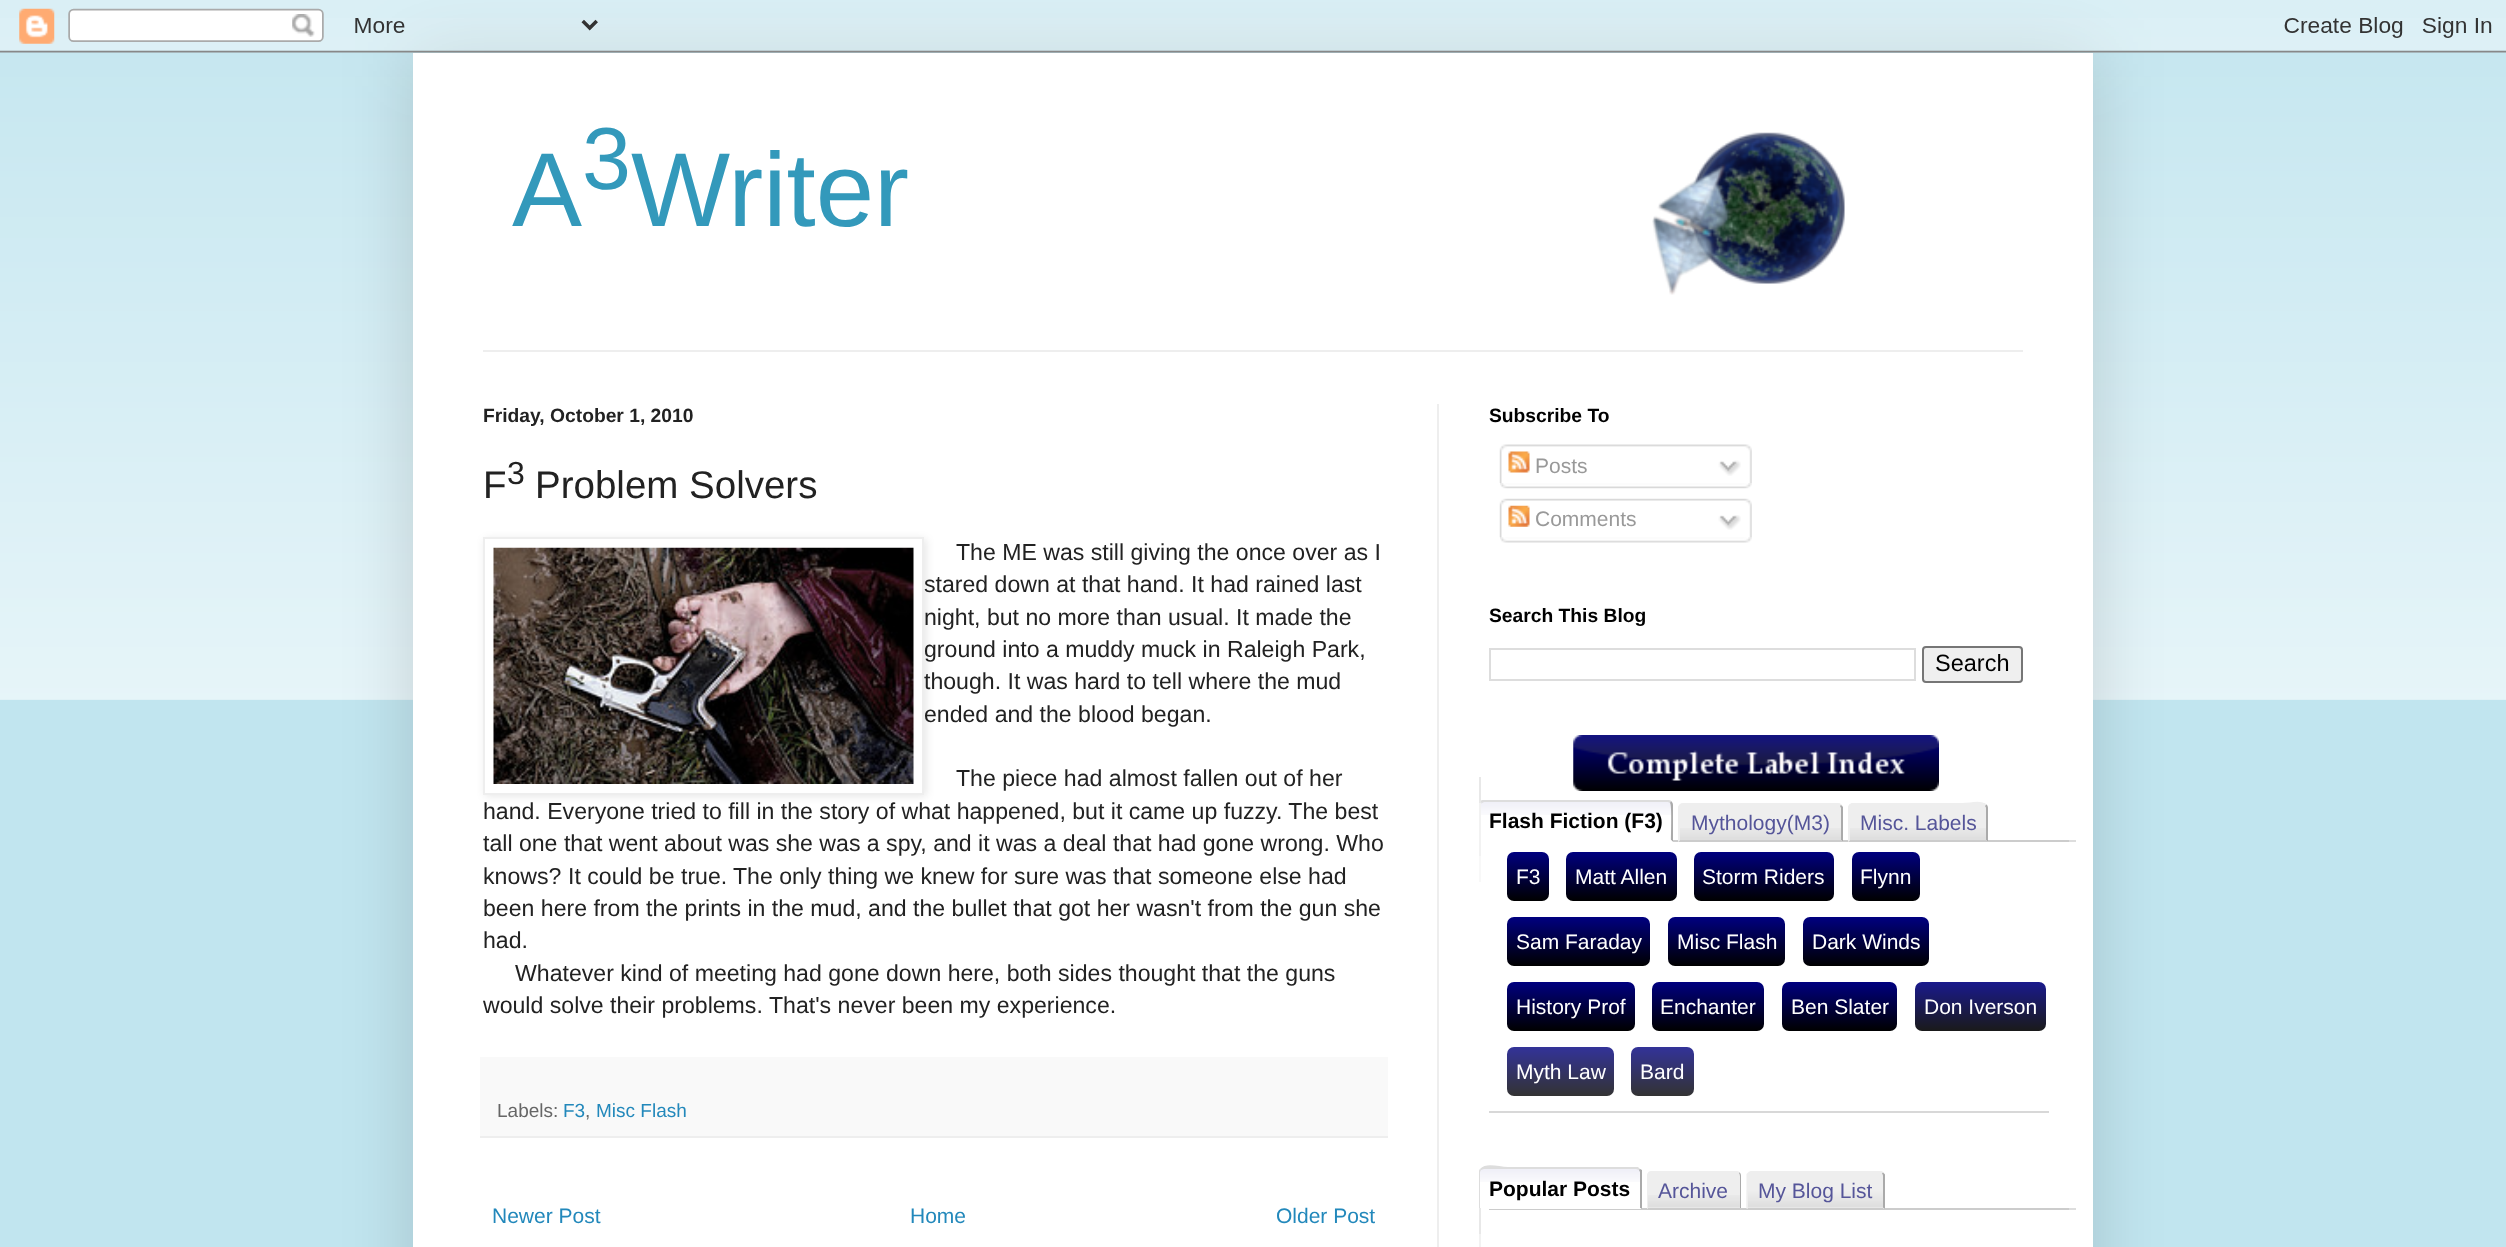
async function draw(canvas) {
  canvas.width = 2506;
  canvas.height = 1247;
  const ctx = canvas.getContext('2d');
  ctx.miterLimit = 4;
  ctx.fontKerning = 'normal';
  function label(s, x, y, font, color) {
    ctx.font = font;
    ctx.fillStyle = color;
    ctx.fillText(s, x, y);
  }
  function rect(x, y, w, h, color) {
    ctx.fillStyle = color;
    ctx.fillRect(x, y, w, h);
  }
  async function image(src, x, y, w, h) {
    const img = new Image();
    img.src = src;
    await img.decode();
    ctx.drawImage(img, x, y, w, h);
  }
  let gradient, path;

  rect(0, 0, 2506, 1247, '#c1e5ef');
  await image('assets/img2.png', 0, 18, 2506, 682);
  ctx.fillStyle = '#00000026';
  ctx.filter = 'blur(35px)';
  ctx.beginPath();
  ctx.rect(413, 53, 1680, 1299);
  ctx.fill();
  ctx.filter = 'none';
  await image('assets/img1.png', 0, 0, 2506, 53);
  rect(413, 53, 1680, 1194, '#fff');
  await image('assets/img3.png', 1652, 132, 193, 163);
  label('A', 512, 226, '105px Liberation Sans', '#39b');
  label('3', 582, 189, '88px Liberation Sans', '#39b');
  label('Writer', 631, 226, '105px Liberation Sans', '#39b');
  rect(483, 350, 1540, 2, '#eee');
  rect(1437, 404, 2, 843, '#eee');
  label('Friday, October 1, 2010', 483, 422, 'bold 19.25px Liberation Sans', '#222');
  label('F', 483, 498, '38.5px Liberation Sans', '#222');
  label('3', 507, 484, '32px Liberation Sans', '#222');
  label('Problem Solvers', 535, 498, '38.5px Liberation Sans', '#222');
  ctx.fillStyle = '#0000001a';
  ctx.filter = 'blur(4.5px)';
  ctx.beginPath();
  ctx.rect(485, 539, 441, 257);
  ctx.fill();
  ctx.filter = 'none';
  ctx.fillStyle = '#fff';
  ctx.beginPath();
  ctx.rect(484, 538, 439, 256);
  ctx.fill();
  ctx.strokeStyle = '#eee';
  ctx.lineWidth = 2;
  ctx.stroke();
  await image('assets/img4.png', 493, 547, 421, 237);
  label('The ME was still giving the once over as I', 956, 560, '23.1px Liberation Sans', '#222');
  label('stared down at that hand. It had rained last', 924, 592, '23.1px Liberation Sans', '#222');
  label('night, but no more than usual.', 924, 625, '23.1px Liberation Sans', '#222');
  label('It made the', 1236, 625, '23.1px Liberation Sans', '#222');
  label('ground into a muddy muck in Raleigh Park,', 924, 657, '23.1px Liberation Sans', '#222');
  label('though. It was hard to tell where the mud', 924, 689, '23.1px Liberation Sans', '#222');
  label('ended and the blood began.', 924, 722, '23.1px Liberation Sans', '#222');
  label('The piece had almost fallen out of her', 956, 786, '23.1px Liberation Sans', '#222');
  label('hand. Everyone tried to fill in the story of what happened, but it came up fuzzy. The best', 483, 819, '23.1px Liberation Sans', '#222');
  label('tall one that went about was she was a spy, and it was a deal that had gone wrong. Who', 483, 851, '23.1px Liberation Sans', '#222');
  label('knows?', 483, 884, '23.1px Liberation Sans', '#222');
  label('It could be true.', 568, 884, '23.1px Liberation Sans', '#222');
  label('The only thing we knew for sure was that someone else had', 733, 884, '23.1px Liberation Sans', '#222');
  label('been here from the prints in the mud, and the bullet that got her wasn\'t from the gun she', 483, 916, '23.1px Liberation Sans', '#222');
  label('had.', 483, 948, '23.1px Liberation Sans', '#222');
  label('Whatever kind of meeting had gone down here, both sides thought that the guns', 515, 981, '23.1px Liberation Sans', '#222');
  label('would solve their problems.', 483, 1013, '23.1px Liberation Sans', '#222');
  label('That\'s never been my experience.', 769, 1013, '23.1px Liberation Sans', '#222');
  rect(480, 1057, 908, 79, '#f9f9f9');
  rect(480, 1136, 908, 2, '#eee');
  label('Labels:', 497, 1117, '19px Liberation Sans', '#666');
  label('F3', 563, 1117, '19px Liberation Sans', '#28b');
  label(',', 585, 1117, '19px Liberation Sans', '#666');
  label('Misc Flash', 596, 1117, '19px Liberation Sans', '#28b');
  label('Newer Post', 492, 1223, '21px Liberation Sans', '#28b');
  label('Home', 910, 1223, '21px Liberation Sans', '#28b');
  label('Older Post', 1276, 1223, '21px Liberation Sans', '#28b');
  label('Subscribe To', 1489, 422, 'bold 19.25px Liberation Sans', '#000');
  await image('assets/img5.png', 1499, 444, 253, 39);
  await image('assets/img6.png', 1508, 451, 22, 22);
  label('Posts', 1535, 473, '21px Liberation Sans', '#999');
  await image('assets/img7.png', 1718, 460, 23, 16);
  await image('assets/img8.png', 1500, 483, 252, 6);
  await image('assets/img9.png', 1499, 498, 253, 40);
  await image('assets/img10.png', 1508, 505, 22, 22);
  label('Comments', 1535, 526, '21px Liberation Sans', '#999');
  await image('assets/img11.png', 1718, 515, 23, 15);
  await image('assets/img12.png', 1500, 537, 252, 6);
  label('Search This Blog', 1489, 622, 'bold 19.25px Liberation Sans', '#000');
  ctx.strokeStyle = '#ddd';
  ctx.strokeRect(1490, 649, 425, 31);
  ctx.fillStyle = '#efefef';
  ctx.beginPath();
  ctx.roundRect(1923, 647, 99, 35, 3);
  ctx.fill();
  ctx.strokeStyle = '#767676';
  ctx.stroke();
  label('Search', 1935, 671, '23.5px Liberation Sans', '#000');
  await image('assets/img13.png', 1573, 735, 366, 56);
  await image('assets/img14.png', 1481, 801, 192, 14);
  ctx.fillStyle = '#ddd';
  path = new Path2D('M1484 800C1482 800 1481 800 1480 801L1482 803L1484 802H1668L1670 803L1671 801C1671 800 1669 800 1668 800Z');
  ctx.fill(path);
  ctx.fillStyle = '#aaa';
  path = new Path2D('M1671 801C1672 802 1673 803 1673 805V842L1671 840C1671 835 1672 804 1670 803Z');
  ctx.fill(path);
  ctx.fillStyle = '#fff';
  path = new Path2D('M1673 842H1479L1480 840H1671Z');
  ctx.fill(path);
  ctx.fillStyle = '#ddd';
  path = new Path2D('M1480 801C1480 802 1479 804 1479 805V842L1480 840V804L1482 803Z');
  ctx.fill(path);
  rect(1479, 803, 2, 53, '#f2f2f2');
  rect(1479, 777, 2, 26, '#e8e8e8');
  rect(1479, 856, 2, 26, '#f8f8f8');
  label('Flash Fiction (F3)', 1489, 828, 'bold 21px Liberation Sans', '#000');
  rect(1673, 840, 403, 2, '#ccc');
  ctx.fillStyle = '#eee';
  ctx.beginPath();
  ctx.roundRect(1678, 803, 165, 39, [5, 5, 0, 0]);
  ctx.fill();
  await image('assets/img15.png', 1680, 828, 161, 12);
  ctx.fillStyle = '#aaa';
  path = new Path2D('M1841 805L1843 807V842L1841 840V808L1840 806Z');
  ctx.fill(path);
  ctx.fillStyle = '#ccc';
  path = new Path2D('M1843 842L1841 840H1680L1678 842Z');
  ctx.fill(path);
  ctx.fillStyle = '#eee';
  path = new Path2D('M1678 842V807L1680 805L1681 806L1680 808V840Z');
  ctx.fill(path);
  label('Mythology(M3)', 1691, 830, '21px Liberation Sans', '#559');
  ctx.fillStyle = '#eee';
  ctx.beginPath();
  ctx.roundRect(1848, 803, 140, 39, [5, 5, 0, 0]);
  ctx.fill();
  await image('assets/img16.png', 1850, 828, 136, 12);
  path = new Path2D('M1853 805L1851 806L1849 805L1852 803H1962C1971 803 1981 799 1987 805L1985 806L1983 805Z');
  ctx.fill(path);
  ctx.fillStyle = '#aaa';
  path = new Path2D('M1988 842V808C1988 807 1987.5 805.5 1986.5 804.5L1985 806C1985.5 806.5 1986 807.5 1986 808V840Z');
  ctx.fill(path);
  ctx.fillStyle = '#ccc';
  path = new Path2D('M1988 842H1848L1850 840H1986Z');
  ctx.fill(path);
  ctx.fillStyle = '#eee';
  path = new Path2D('M1848 842L1850 840V808C1850 807.5 1850.5 806.5 1851 806L1849.5 804.5C1848.5 805.5 1848 807 1848 808Z');
  ctx.fill(path);
  label('Misc. Labels', 1860, 830, '21px Liberation Sans', '#559');
  rect(2069, 840, 7, 2, '#ddd');
  rect(1489, 1111, 560, 2, '#d8d8d8');
  gradient = ctx.createLinearGradient(1528, 852, 1528, 901);
  gradient.addColorStop(0, '#000080');
  gradient.addColorStop(1, '#000');
  ctx.fillStyle = gradient;
  ctx.beginPath();
  ctx.roundRect(1507, 852, 42, 49, 7);
  ctx.fill();
  label('F3', 1516, 884, '21px Liberation Sans', '#fff');
  gradient = ctx.createLinearGradient(1621, 852, 1621, 901);
  gradient.addColorStop(0, '#000080');
  gradient.addColorStop(1, '#000');
  ctx.fillStyle = gradient;
  ctx.beginPath();
  ctx.roundRect(1566, 852, 111, 49, 7);
  ctx.fill();
  label('Matt Allen', 1575, 884, '21px Liberation Sans', '#fff');
  gradient = ctx.createLinearGradient(1764, 852, 1764, 901);
  gradient.addColorStop(0, '#000080');
  gradient.addColorStop(1, '#000');
  ctx.fillStyle = gradient;
  ctx.beginPath();
  ctx.roundRect(1694, 852, 140, 49, 7);
  ctx.fill();
  label('Storm Riders', 1702, 884, '21px Liberation Sans', '#fff');
  gradient = ctx.createLinearGradient(1886, 852, 1886, 901);
  gradient.addColorStop(0, '#000080');
  gradient.addColorStop(1, '#000');
  ctx.fillStyle = gradient;
  ctx.beginPath();
  ctx.roundRect(1852, 852, 68, 49, 7);
  ctx.fill();
  label('Flynn', 1860, 884, '21px Liberation Sans', '#fff');
  gradient = ctx.createLinearGradient(1579, 917, 1579, 966);
  gradient.addColorStop(0, '#000080');
  gradient.addColorStop(1, '#000');
  ctx.fillStyle = gradient;
  ctx.beginPath();
  ctx.roundRect(1507, 917, 143, 49, 7);
  ctx.fill();
  label('Sam Faraday', 1516, 949, '21px Liberation Sans', '#fff');
  gradient = ctx.createLinearGradient(1726, 917, 1726, 966);
  gradient.addColorStop(0, '#000080');
  gradient.addColorStop(1, '#000');
  ctx.fillStyle = gradient;
  ctx.beginPath();
  ctx.roundRect(1668, 917, 117, 49, 7);
  ctx.fill();
  label('Misc Flash', 1677, 949, '21px Liberation Sans', '#fff');
  gradient = ctx.createLinearGradient(1866, 917, 1866, 966);
  gradient.addColorStop(0, '#000080');
  gradient.addColorStop(1, '#000');
  ctx.fillStyle = gradient;
  ctx.beginPath();
  ctx.roundRect(1803, 917, 126, 49, 7);
  ctx.fill();
  label('Dark Winds', 1812, 949, '21px Liberation Sans', '#fff');
  gradient = ctx.createLinearGradient(1571, 982, 1571, 1031);
  gradient.addColorStop(0, '#000080');
  gradient.addColorStop(1, '#000');
  ctx.fillStyle = gradient;
  ctx.beginPath();
  ctx.roundRect(1507, 982, 128, 49, 7);
  ctx.fill();
  label('History Prof', 1516, 1014, '21px Liberation Sans', '#fff');
  gradient = ctx.createLinearGradient(1708, 982, 1708, 1031);
  gradient.addColorStop(0, '#000080');
  gradient.addColorStop(1, '#000');
  ctx.fillStyle = gradient;
  ctx.beginPath();
  ctx.roundRect(1652, 982, 112, 49, 7);
  ctx.fill();
  label('Enchanter', 1660, 1014, '21px Liberation Sans', '#fff');
  gradient = ctx.createLinearGradient(1839, 982, 1839, 1031);
  gradient.addColorStop(0, '#000080');
  gradient.addColorStop(1, '#000');
  ctx.fillStyle = gradient;
  ctx.beginPath();
  ctx.roundRect(1782, 982, 115, 49, 7);
  ctx.fill();
  label('Ben Slater', 1791, 1014, '21px Liberation Sans', '#fff');
  gradient = ctx.createLinearGradient(1980, 982, 1980, 1031);
  gradient.addColorStop(0, '#1a1a8d');
  gradient.addColorStop(1, '#1a1a1a');
  ctx.fillStyle = gradient;
  ctx.beginPath();
  ctx.roundRect(1915, 982, 131, 49, 7);
  ctx.fill();
  label('Don Iverson', 1924, 1014, '21px Liberation Sans', '#fff');
  gradient = ctx.createLinearGradient(1560, 1047, 1560, 1096);
  gradient.addColorStop(0, '#339');
  gradient.addColorStop(1, '#333');
  ctx.fillStyle = gradient;
  ctx.beginPath();
  ctx.roundRect(1507, 1047, 107, 49, 7);
  ctx.fill();
  label('Myth Law', 1516, 1079, '21px Liberation Sans', '#fff');
  gradient = ctx.createLinearGradient(1663, 1047, 1663, 1096);
  gradient.addColorStop(0, '#339');
  gradient.addColorStop(1, '#333');
  ctx.fillStyle = gradient;
  ctx.beginPath();
  ctx.roundRect(1631, 1047, 63, 49, 7);
  ctx.fill();
  label('Bard', 1640, 1079, '21px Liberation Sans', '#fff');
  rect(1489, 1208, 587, 2, '#ccc');
  ctx.fillStyle = '#fff';
  ctx.beginPath();
  ctx.roundRect(1479, 1167, 163, 42, [5, 5, 0, 0]);
  ctx.fill();
  await image('assets/img17.png', 1479, 1169, 162, 13);
  ctx.fillStyle = '#ddd';
  path = new Path2D('M1484 1169L1481 1170L1480 1169C1486 1162 1499 1167 1508 1167H1638L1640 1169L1639 1170L1636 1169Z');
  ctx.fill(path);
  ctx.fillStyle = '#aaa';
  path = new Path2D('M1642 1209L1640 1208V1172L1639 1170L1640 1169L1642 1170Z');
  ctx.fill(path);
  ctx.fillStyle = '#fff';
  path = new Path2D('M1641 1209H1479L1480 1208H1640Z');
  ctx.fill(path);
  ctx.fillStyle = '#ddd';
  path = new Path2D('M1479 1209L1480 1208V1172L1481 1170L1480 1169C1479 1170 1479 1171 1479 1172Z');
  ctx.fill(path);
  label('Popular Posts', 1489, 1196, 'bold 21px Liberation Sans', '#000');
  ctx.fillStyle = '#eee';
  ctx.beginPath();
  ctx.roundRect(1647, 1171, 94, 38, [5, 5, 0, 0]);
  ctx.fill();
  await image('assets/img18.png', 1648, 1195, 92, 13);
  path = new Path2D('M1652 1171C1650 1171 1649 1172 1648 1172L1649 1173L1652 1172H1736L1739 1173L1740 1172C1739 1172 1738 1171 1736 1171Z');
  ctx.fill(path);
  ctx.fillStyle = '#aaa';
  path = new Path2D('M1741 1209V1176C1741 1174.5 1740.5 1173 1739.5 1172.5L1739 1173C1739.5 1174 1740 1175 1740 1176V1208Z');
  ctx.fill(path);
  ctx.fillStyle = '#ccc';
  path = new Path2D('M1741 1209L1740 1208H1648L1647 1209Z');
  ctx.fill(path);
  ctx.fillStyle = '#eee';
  path = new Path2D('M1648.5 1172.5C1647.5 1173 1647 1174.5 1647 1176V1209L1648 1208V1176C1648 1175 1648.5 1174 1649 1173Z');
  ctx.fill(path);
  label('Archive', 1658, 1198, '21px Liberation Sans', '#559');
  ctx.fillStyle = '#eee';
  ctx.beginPath();
  ctx.roundRect(1747, 1171, 138, 38, [5, 5, 0, 0]);
  ctx.fill();
  await image('assets/img19.png', 1746, 1190, 138, 18);
  path = new Path2D('M1752 1171L1748 1172L1749 1173L1752 1172H1880L1882 1173L1883 1172L1880 1171Z');
  ctx.fill(path);
  ctx.fillStyle = '#aaa';
  path = new Path2D('M1883 1172.5L1885 1174.5V1209L1883 1207.5V1176C1883 1175 1882.5 1174 1882 1173.5Z');
  ctx.fill(path);
  ctx.fillStyle = '#ccc';
  path = new Path2D('M1884 1209H1747L1748 1208H1883Z');
  ctx.fill(path);
  ctx.fillStyle = '#eee';
  path = new Path2D('M1746.5 1174L1748 1172.5L1749 1173.5C1748.5 1174 1748 1175 1748 1176V1208L1746.5 1209Z');
  ctx.fill(path);
  label('My Blog List', 1758, 1198, '21px Liberation Sans', '#559');
  rect(1479, 1234, 2, 13, '#f2f2f2');
  rect(1479, 1208, 2, 26, '#e8e8e8');
  rect(2069, 1208, 7, 2, '#ddd');
}

draw(document.querySelector('canvas'));
